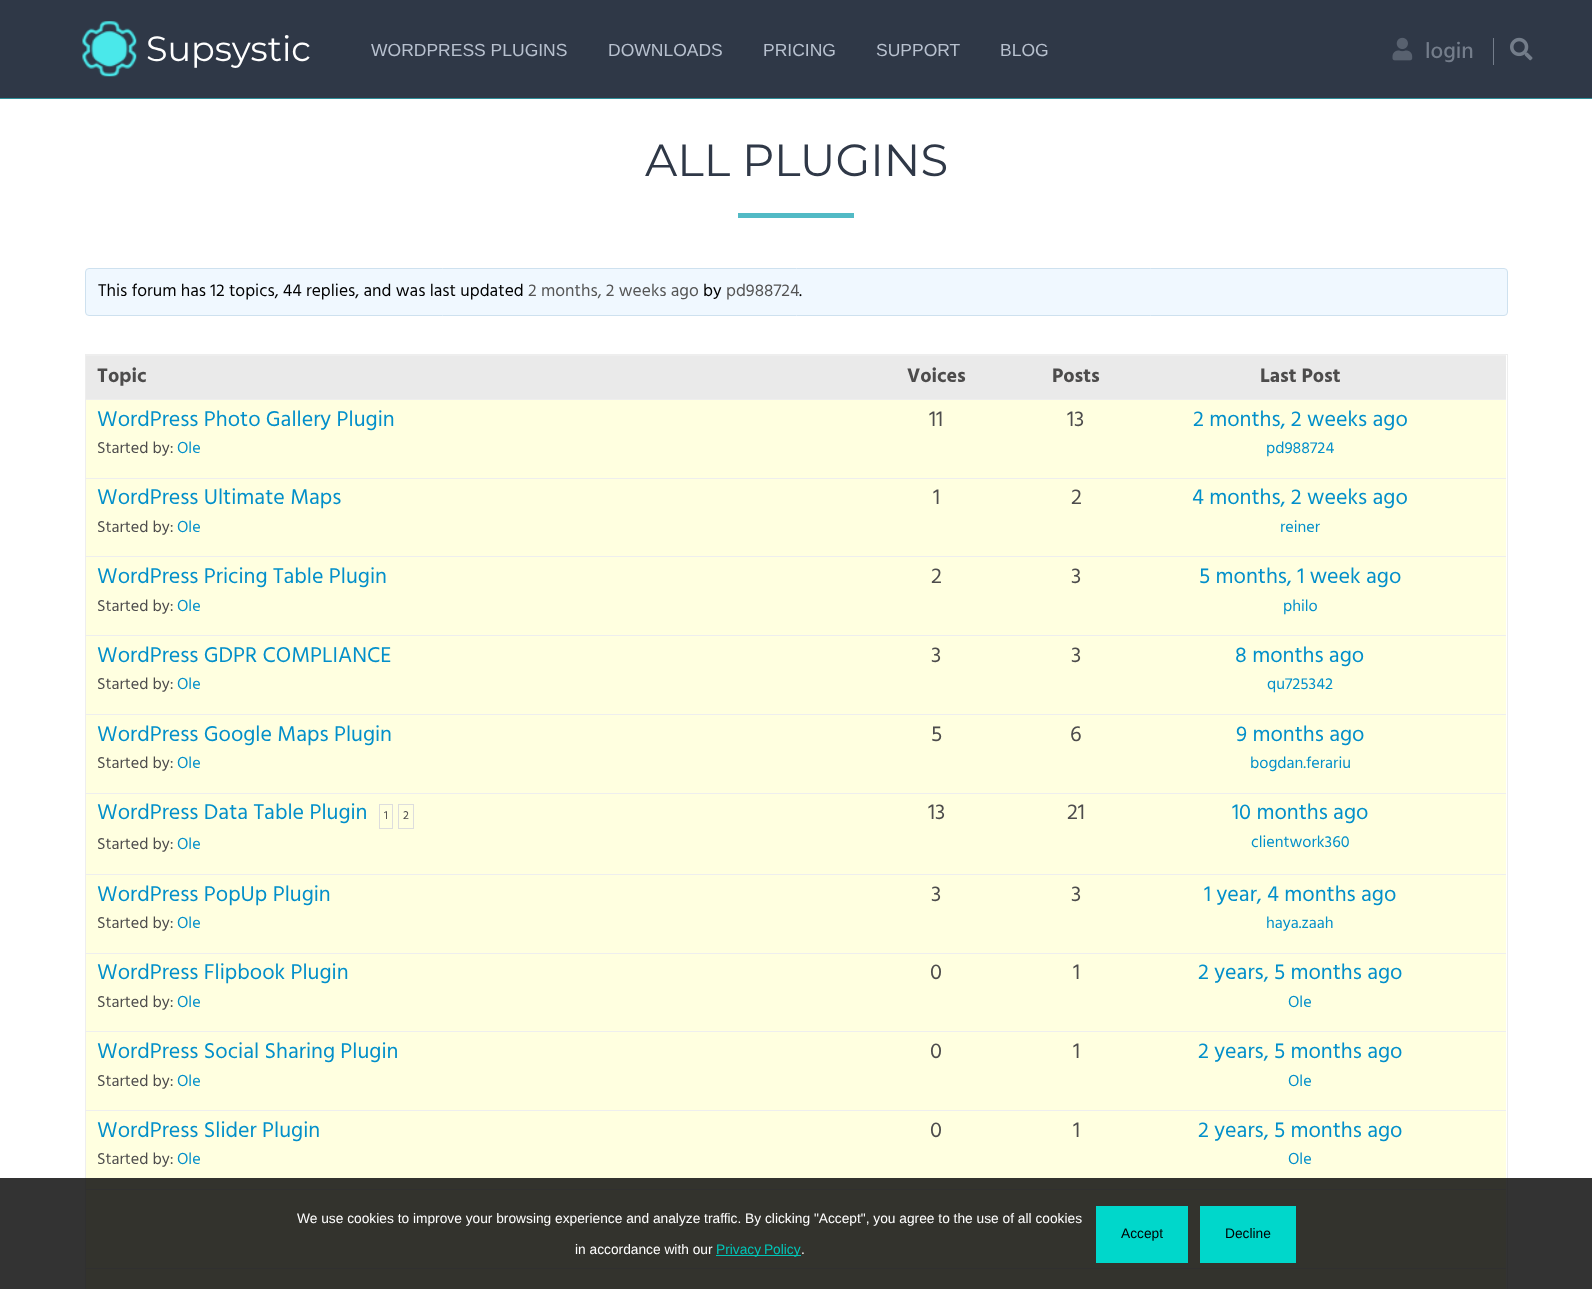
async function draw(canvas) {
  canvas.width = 1592;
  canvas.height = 1289;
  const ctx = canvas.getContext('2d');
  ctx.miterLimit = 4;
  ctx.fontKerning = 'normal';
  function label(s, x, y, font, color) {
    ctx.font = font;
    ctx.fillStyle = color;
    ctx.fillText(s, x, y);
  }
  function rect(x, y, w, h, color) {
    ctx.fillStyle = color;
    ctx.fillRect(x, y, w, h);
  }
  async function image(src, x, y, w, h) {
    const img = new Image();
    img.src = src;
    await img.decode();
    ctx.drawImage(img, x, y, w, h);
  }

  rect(0, 0, 1592, 1289, '#fff');
  rect(0, 0, 1592, 98, '#2f3847');
  await image('assets/img1.png', 82, 21, 55, 56);
  label('Supsystic', 146, 61, '35px Montserrat', '#fff');
  label('WORDPRESS PLUGINS', 371, 56, '17.5px Liberation Sans', '#b8c1cf');
  label('DOWNLOADS', 608, 56, '17.5px Liberation Sans', '#b8c1cf');
  label('PRICING', 763, 56, '17.5px Liberation Sans', '#b8c1cf');
  label('SUPPORT', 876, 56, '17.5px Liberation Sans', '#b8c1cf');
  label('BLOG', 1000, 56, '17.5px Liberation Sans', '#b8c1cf');
  rect(1493, 38, 1, 27, '#747d8b');
  await image('assets/img2.png', 1392, 37, 21, 24);
  label('login', 1425, 58, '500 22.5px Hind', '#747d8b');
  await image('assets/img3.png', 1510, 37, 23, 24);
  rect(0, 98, 1592, 1, '#2f8e99');
  label('ALL PLUGINS', 645, 176, '45px Montserrat', '#2f3847');
  rect(738, 213, 116, 5, '#52bac5');
  ctx.fillStyle = '#f0f8ff';
  ctx.beginPath();
  ctx.roundRect(85.5, 268.5, 1422, 47, 3.5);
  ctx.fill();
  ctx.strokeStyle = '#cee1ef';
  ctx.stroke();
  label('This forum has 12 topics, 44 replies, and was last updated', 98, 296, '17.5px Hind', '#000');
  label('2 months, 2 weeks ago', 528, 296, '17.5px Hind', '#555');
  label('by', 703, 296, '17.5px Hind', '#000');
  label('pd988724', 726, 296, '17.5px Hind', '#555');
  label('.', 799, 296, '17.5px Hind', '#000');
  ctx.strokeStyle = '#eee';
  ctx.strokeRect(85.5, 354.5, 1422, 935);
  rect(86, 356, 1420, 43, '#eaeaea');
  rect(86, 355, 1420, 1, '#eee');
  label('Topic', 97, 382, 'bold 20px Hind', '#4d4c4c');
  label('Voices', 907, 382, 'bold 20px Hind', '#4d4c4c');
  label('Posts', 1052, 382, 'bold 20px Hind', '#4d4c4c');
  label('Last Post', 1260, 382, 'bold 20px Hind', '#4d4c4c');
  rect(86, 400, 1420, 78, '#ffffe0');
  rect(86, 399, 1420, 1, '#eee');
  label('WordPress Photo Gallery Plugin', 97, 426, '22px Hind', '#028fca');
  label('Started by:', 97, 453, '16.25px Hind', '#4d4c4c');
  label('Ole', 177, 453, '16.25px Hind', '#028fca');
  label('11', 929, 426, '22px Hind', '#4d4c4c');
  label('13', 1067, 426, '22px Hind', '#4d4c4c');
  label('2 months, 2 weeks ago', 1193, 426, '22px Hind', '#028fca');
  label('pd988724', 1266, 453, '16.25px Hind', '#028fca');
  rect(86, 479, 1420, 77, '#ffffe0');
  rect(86, 478, 1420, 1, '#eee');
  label('WordPress Ultimate Maps', 97, 504, '22px Hind', '#028fca');
  label('Started by:', 97, 532, '16.25px Hind', '#4d4c4c');
  label('Ole', 177, 532, '16.25px Hind', '#028fca');
  label('1', 933, 504, '22px Hind', '#4d4c4c');
  label('2', 1071, 504, '22px Hind', '#4d4c4c');
  label('4 months, 2 weeks ago', 1192, 504, '22px Hind', '#028fca');
  label('reiner', 1280, 532, '16.25px Hind', '#028fca');
  rect(86, 557, 1420, 78, '#ffffe0');
  rect(86, 556, 1420, 1, '#eee');
  label('WordPress Pricing Table Plugin', 97, 583, '22px Hind', '#028fca');
  label('Started by:', 97, 611, '16.25px Hind', '#4d4c4c');
  label('Ole', 177, 611, '16.25px Hind', '#028fca');
  label('2', 931, 583, '22px Hind', '#4d4c4c');
  label('3', 1071, 583, '22px Hind', '#4d4c4c');
  label('5 months, 1 week ago', 1199, 583, '22px Hind', '#028fca');
  label('philo', 1283, 611, '16.25px Hind', '#028fca');
  rect(86, 636, 1420, 78, '#ffffe0');
  rect(86, 635, 1420, 1, '#eee');
  label('WordPress GDPR COMPLIANCE', 97, 662, '22px Hind', '#028fca');
  label('Started by:', 97, 689, '16.25px Hind', '#4d4c4c');
  label('Ole', 177, 689, '16.25px Hind', '#028fca');
  label('3', 931, 662, '22px Hind', '#4d4c4c');
  label('3', 1071, 662, '22px Hind', '#4d4c4c');
  label('8 months ago', 1235, 662, '22px Hind', '#028fca');
  label('qu725342', 1267, 689, '16.25px Hind', '#028fca');
  rect(86, 715, 1420, 78, '#ffffe0');
  rect(86, 714, 1420, 1, '#eee');
  label('WordPress Google Maps Plugin', 97, 741, '22px Hind', '#028fca');
  label('Started by:', 97, 768, '16.25px Hind', '#4d4c4c');
  label('Ole', 177, 768, '16.25px Hind', '#028fca');
  label('5', 931, 741, '22px Hind', '#4d4c4c');
  label('6', 1070, 741, '22px Hind', '#4d4c4c');
  label('9 months ago', 1236, 741, '22px Hind', '#028fca');
  label('bogdan.ferariu', 1250, 768, '16.25px Hind', '#028fca');
  rect(86, 794, 1420, 80, '#ffffe0');
  rect(86, 793, 1420, 1, '#eee');
  label('WordPress Data Table Plugin', 97, 819, '22px Hind', '#028fca');
  ctx.strokeStyle = '#ddd';
  ctx.strokeRect(379.5, 804.5, 13, 24);
  label('1', 384, 819, '12px Hind', '#4d4c4c');
  ctx.strokeRect(398.5, 804.5, 15, 24);
  label('2', 403, 819, '12px Hind', '#4d4c4c');
  label('Started by:', 97, 849, '16.25px Hind', '#4d4c4c');
  label('Ole', 177, 849, '16.25px Hind', '#028fca');
  label('13', 928, 819, '22px Hind', '#4d4c4c');
  label('21', 1067, 819, '22px Hind', '#4d4c4c');
  label('10 months ago', 1232, 819, '22px Hind', '#028fca');
  label('clientwork360', 1251, 847, '16.25px Hind', '#028fca');
  rect(86, 875, 1420, 78, '#ffffe0');
  rect(86, 874, 1420, 1, '#eee');
  label('WordPress PopUp Plugin', 97, 901, '22px Hind', '#028fca');
  label('Started by:', 97, 928, '16.25px Hind', '#4d4c4c');
  label('Ole', 177, 928, '16.25px Hind', '#028fca');
  label('3', 931, 901, '22px Hind', '#4d4c4c');
  label('3', 1071, 901, '22px Hind', '#4d4c4c');
  label('1 year, 4 months ago', 1204, 901, '22px Hind', '#028fca');
  label('haya.zaah', 1266, 928, '16.25px Hind', '#028fca');
  rect(86, 954, 1420, 77, '#ffffe0');
  rect(86, 953, 1420, 1, '#eee');
  label('WordPress Flipbook Plugin', 97, 979, '22px Hind', '#028fca');
  label('Started by:', 97, 1007, '16.25px Hind', '#4d4c4c');
  label('Ole', 177, 1007, '16.25px Hind', '#028fca');
  label('0', 930, 979, '22px Hind', '#4d4c4c');
  label('1', 1073, 979, '22px Hind', '#4d4c4c');
  label('2 years, 5 months ago', 1198, 979, '22px Hind', '#028fca');
  label('Ole', 1288, 1007, '16.25px Hind', '#028fca');
  rect(86, 1032, 1420, 78, '#ffffe0');
  rect(86, 1031, 1420, 1, '#eee');
  label('WordPress Social Sharing Plugin', 97, 1058, '22px Hind', '#028fca');
  label('Started by:', 97, 1086, '16.25px Hind', '#4d4c4c');
  label('Ole', 177, 1086, '16.25px Hind', '#028fca');
  label('0', 930, 1058, '22px Hind', '#4d4c4c');
  label('1', 1073, 1058, '22px Hind', '#4d4c4c');
  label('2 years, 5 months ago', 1198, 1058, '22px Hind', '#028fca');
  label('Ole', 1288, 1086, '16.25px Hind', '#028fca');
  rect(86, 1111, 1420, 78, '#ffffe0');
  rect(86, 1110, 1420, 1, '#eee');
  label('WordPress Slider Plugin', 97, 1137, '22px Hind', '#028fca');
  label('Started by:', 97, 1164, '16.25px Hind', '#4d4c4c');
  label('Ole', 177, 1164, '16.25px Hind', '#028fca');
  label('0', 930, 1137, '22px Hind', '#4d4c4c');
  label('1', 1073, 1137, '22px Hind', '#4d4c4c');
  label('2 years, 5 months ago', 1198, 1137, '22px Hind', '#028fca');
  label('Ole', 1288, 1164, '16.25px Hind', '#028fca');
  rect(86, 1190, 1420, 78, '#ffffe0');
  rect(86, 1189, 1420, 1, '#eee');
  rect(86, 1269, 1420, 20, '#ffffe0');
  rect(86, 1268, 1420, 1, '#eee');
  rect(0, 1178, 1592, 111, '#000000cc');
  label('We use cookies to improve your browsing experience and analyze traffic. By clicking "Accept", you agree to the use of all cookies', 297, 1223, '13.75px Liberation Sans', '#fff');
  label('in accordance with our', 575, 1254, '13.75px Liberation Sans', '#fff');
  rect(716, 1255, 85, 1, '#00c5b7');
  ctx.wordSpacing = '-1px';
  label('Privacy Policy', 716, 1254, '13.75px Liberation Sans', '#00c5b7');
  ctx.wordSpacing = '0px';
  label('.', 801, 1254, '13.75px Liberation Sans', '#fff');
  rect(1096, 1206, 92, 57, '#00d7cb');
  label('Accept', 1121, 1238, '13.75px Liberation Sans', '#000');
  rect(1200, 1206, 96, 57, '#00d7cb');
  label('Decline', 1225, 1238, '13.75px Liberation Sans', '#000');
}

draw(document.querySelector('canvas'));
